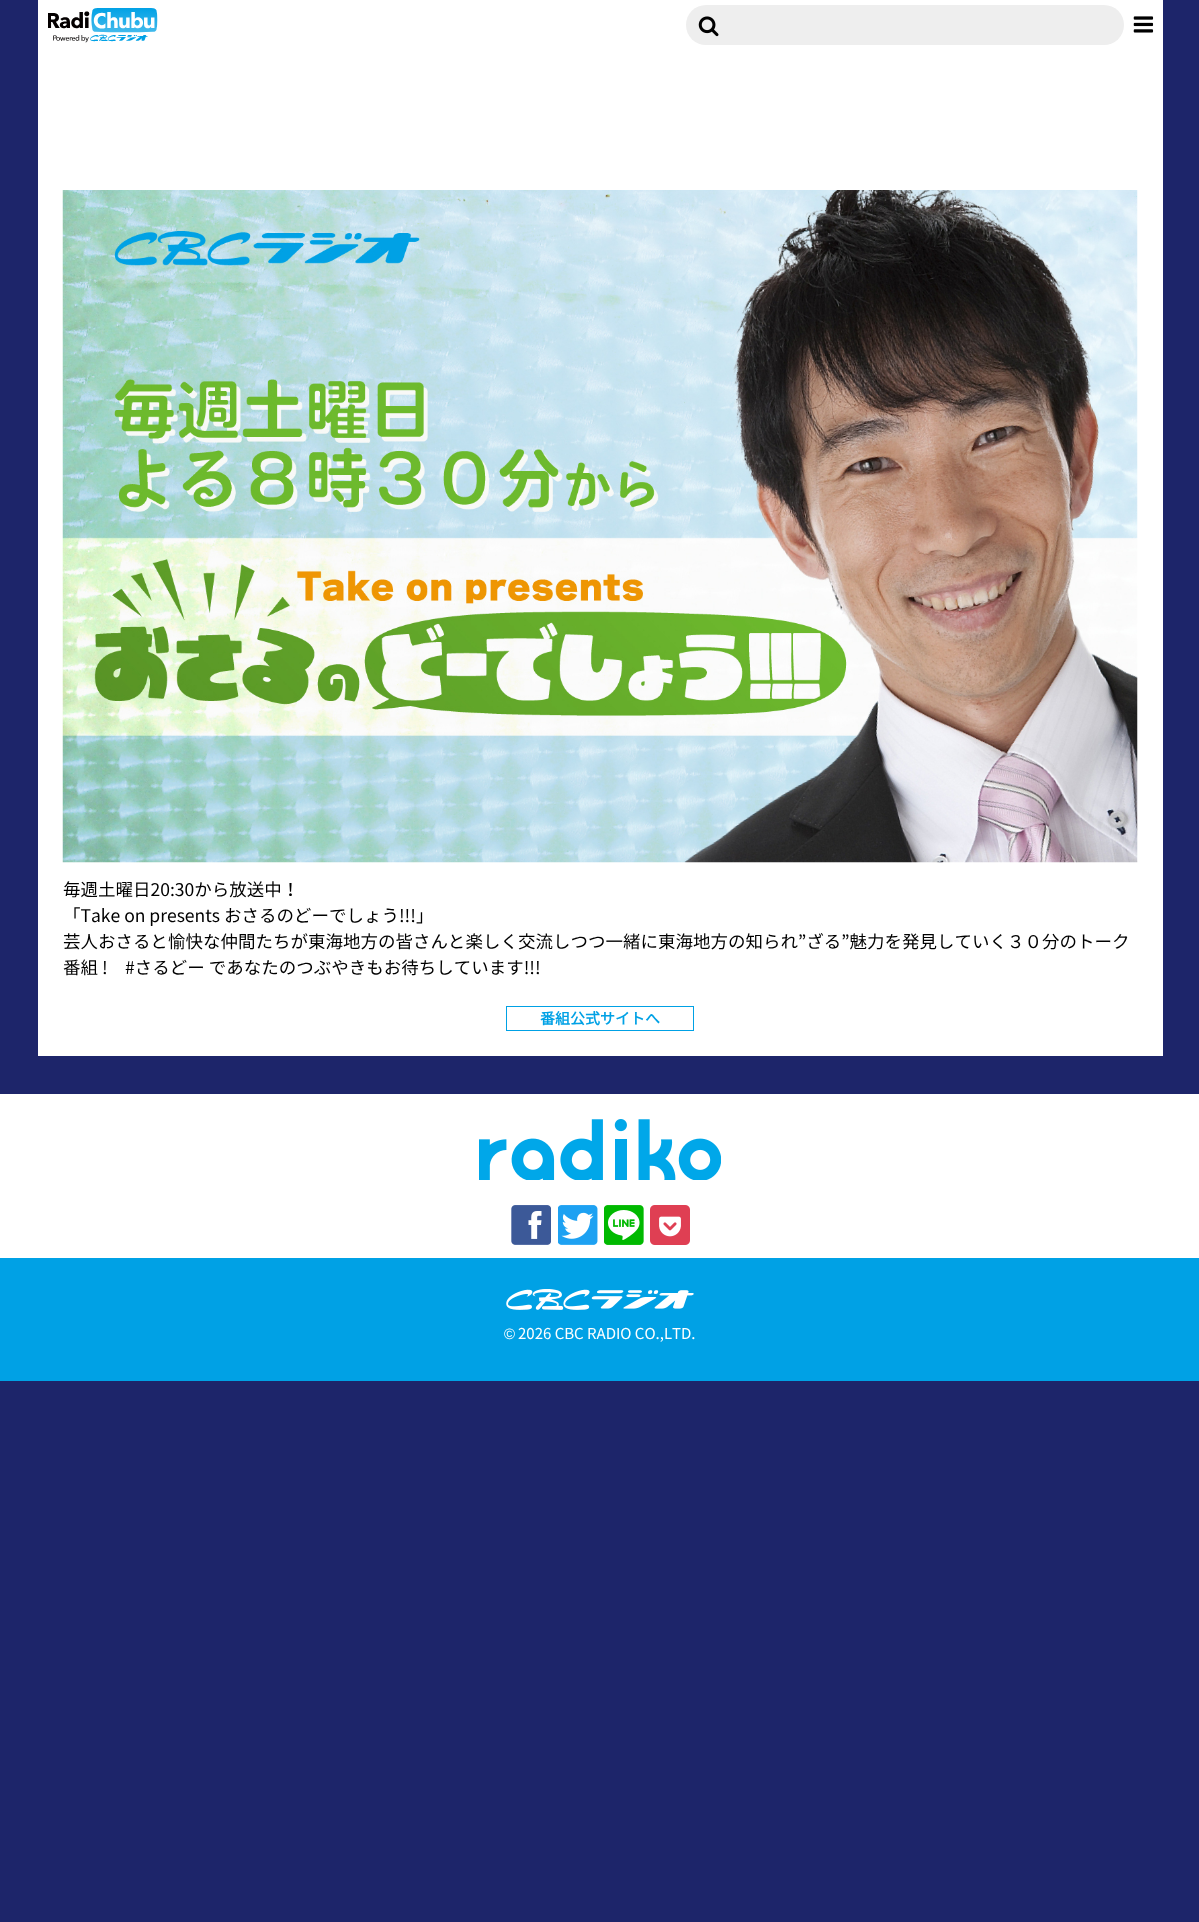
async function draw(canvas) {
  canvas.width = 1199;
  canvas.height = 1922;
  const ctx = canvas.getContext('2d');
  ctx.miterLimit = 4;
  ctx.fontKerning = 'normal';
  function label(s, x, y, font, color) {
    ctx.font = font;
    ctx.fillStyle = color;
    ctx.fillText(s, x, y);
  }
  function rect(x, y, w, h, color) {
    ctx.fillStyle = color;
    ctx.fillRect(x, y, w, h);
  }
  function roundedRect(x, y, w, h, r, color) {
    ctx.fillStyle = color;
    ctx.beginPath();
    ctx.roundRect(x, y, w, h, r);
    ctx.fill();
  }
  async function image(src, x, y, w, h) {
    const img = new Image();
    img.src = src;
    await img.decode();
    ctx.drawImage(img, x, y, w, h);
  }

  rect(0, 0, 1199, 1922, '#1d256a');
  rect(38, 0, 1125, 1056, '#fff');
  await image('assets/img1.png', 48, 8, 110, 35);
  roundedRect(686, 5, 438, 40, 20, '#eee');
  await image('assets/img2.png', 698, 16, 21, 21);
  await image('assets/img3.png', 1133, 16, 21, 17);
  await image('assets/img4.png', 62, 190, 1076, 673);
  label('毎週土曜日20:30から放送中！', 63, 896, '17.5px Noto Sans CJK JP', '#000');
  label('「Take on presents おさるのどーでしょう!!!」', 63, 922, '17.5px Noto Sans CJK JP', '#000');
  label('芸人おさると愉快な仲間たちが東海地方の皆さんと楽しく交流しつつ一緒に東海地方の知られ”ざる”魅力を発見していく３０分のトーク', 63, 948, '17.5px Noto Sans CJK JP', '#000');
  label('番組 !　#さるどー であなたのつぶやきもお待ちしています!!!', 63, 974, '17.5px Noto Sans CJK JP', '#000');
  ctx.strokeStyle = '#00a1e5';
  ctx.strokeRect(506.5, 1006.5, 187, 24);
  label('番組公式サイトへ', 540, 1024, 'bold 15px Noto Sans CJK JP', '#00a1e5');
  rect(0, 1094, 1199, 164, '#fff');
  await image('assets/img5.png', 479, 1119, 242, 61);
  await image('assets/img6.png', 511, 1205, 40, 40);
  await image('assets/img7.png', 558, 1205, 40, 40);
  await image('assets/img8.png', 604, 1205, 40, 40);
  await image('assets/img9.png', 650, 1205, 40, 40);
  rect(0, 1258, 1199, 123, '#00a1e5');
  await image('assets/img10.png', 506, 1289, 188, 21);
  label('©', 504, 1339, '15px Liberation Sans', '#fff');
  label('2026 CBC RADIO CO.,LTD.', 518, 1339, '15px Noto Sans CJK JP', '#fff');
}

draw(document.querySelector('canvas'));
